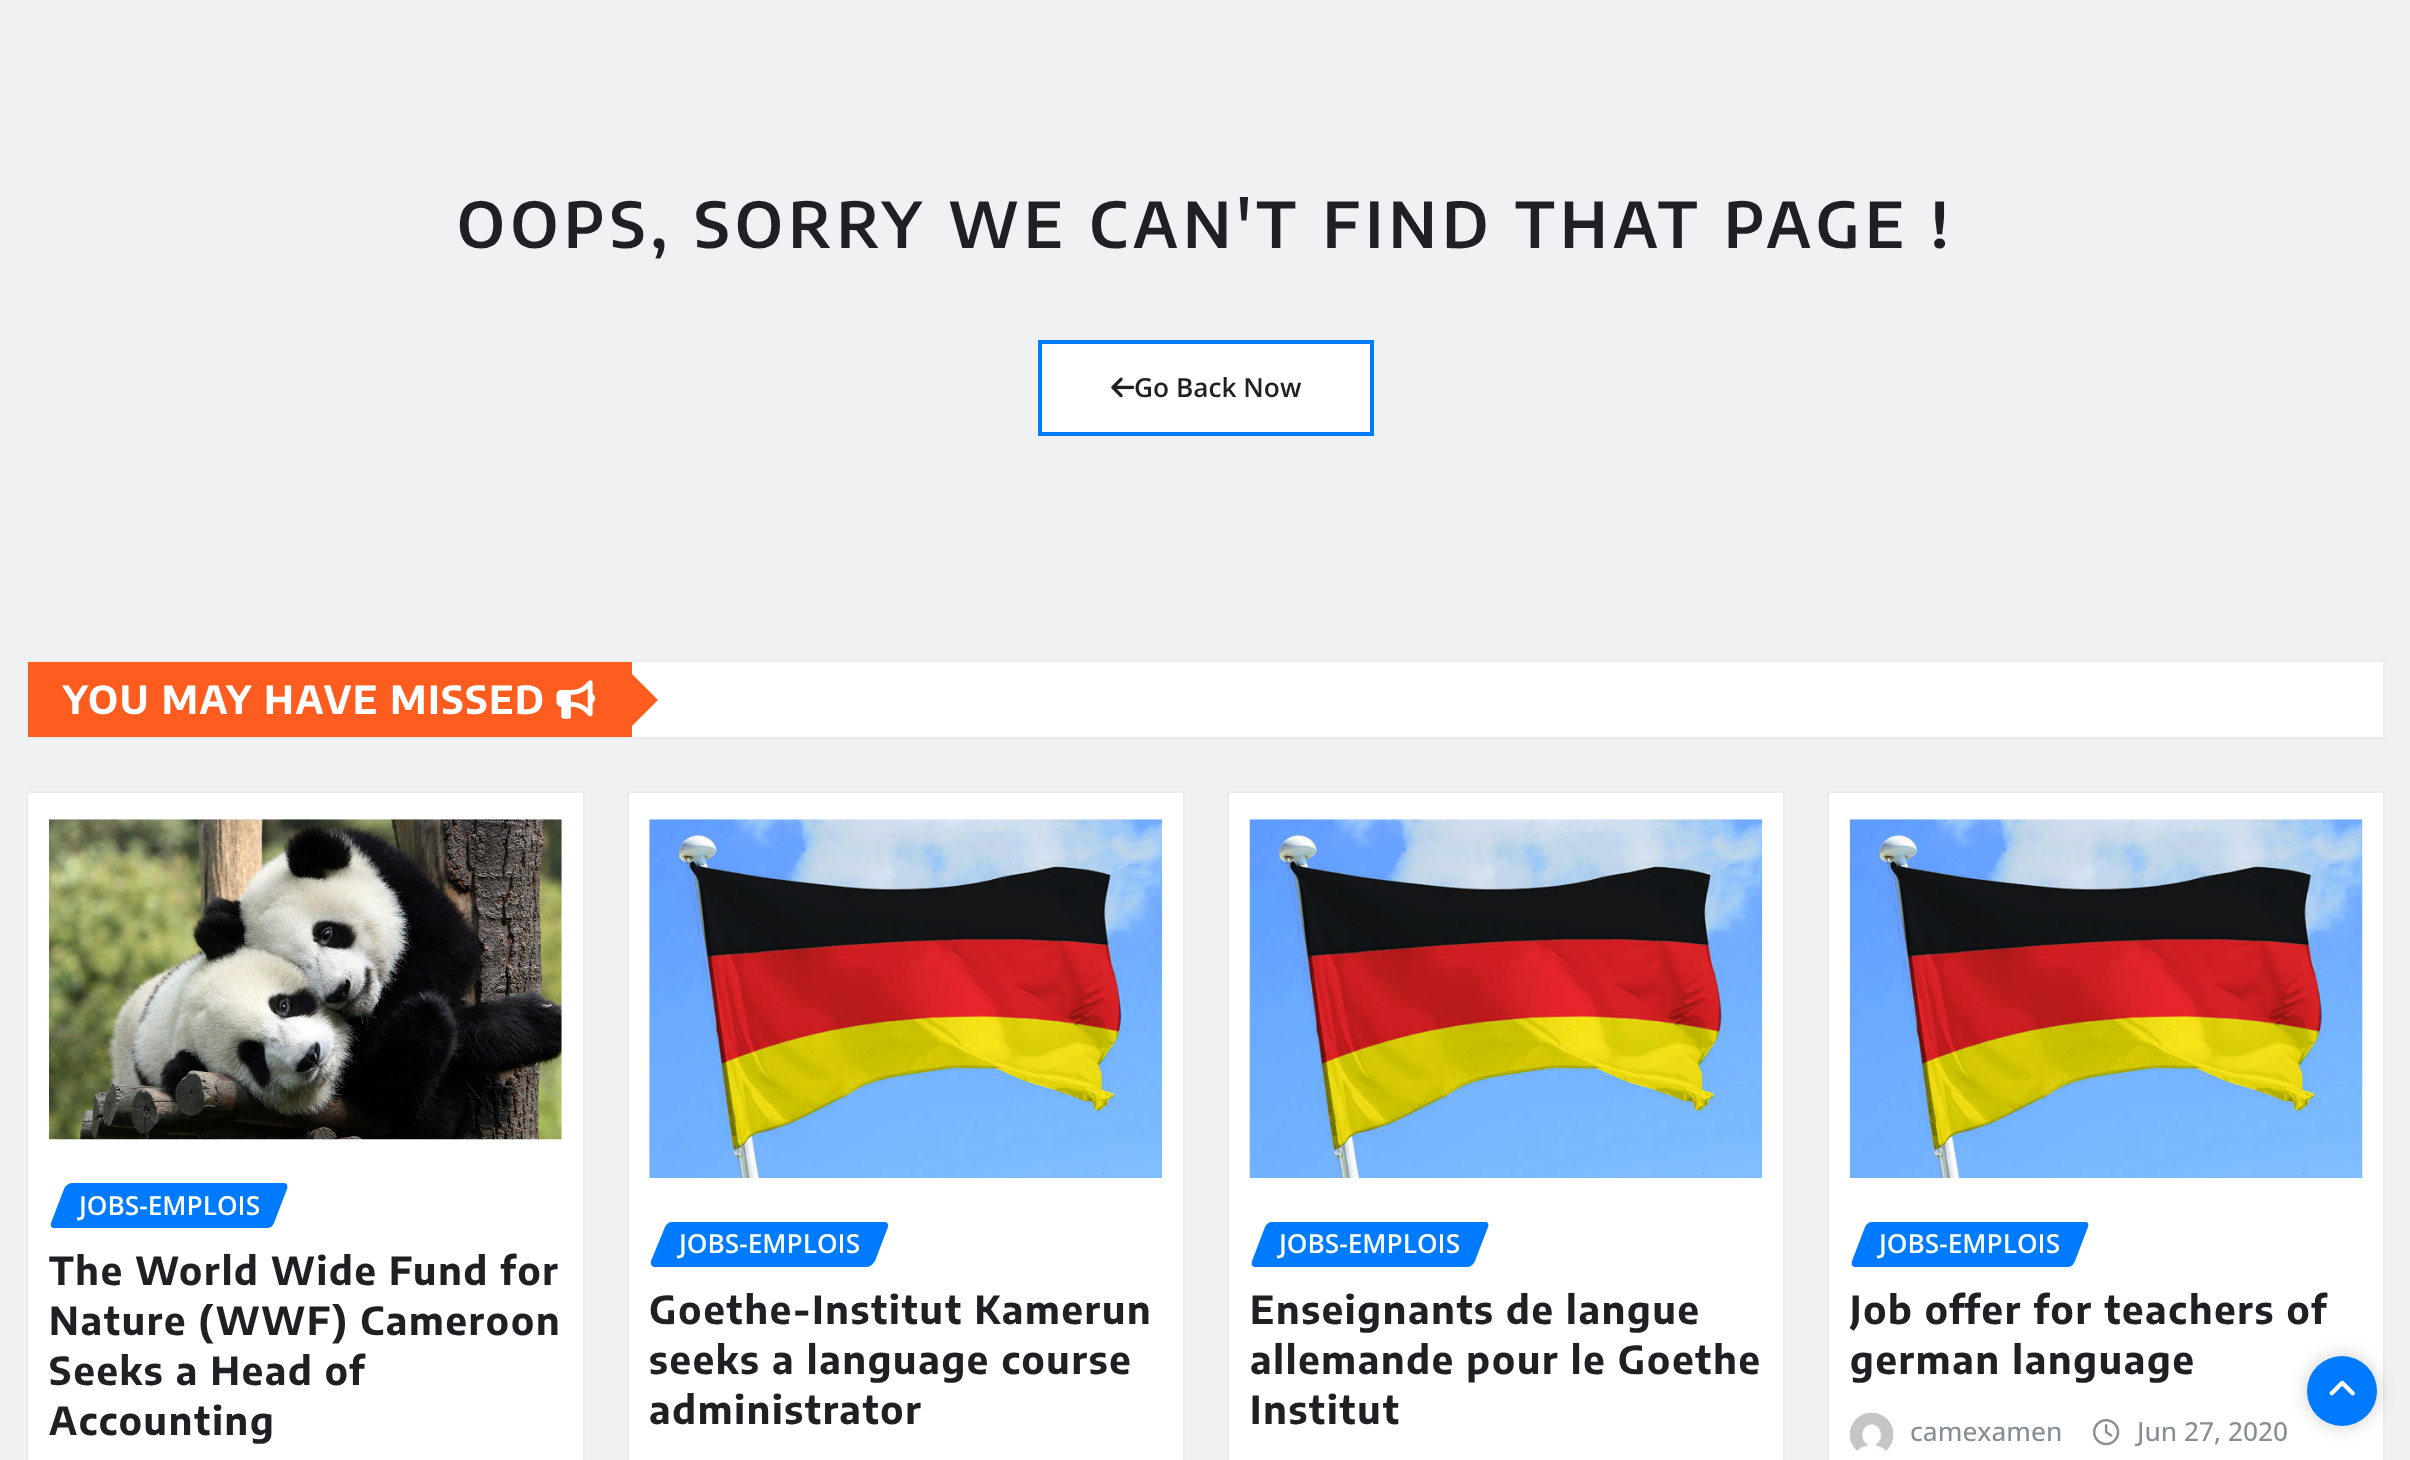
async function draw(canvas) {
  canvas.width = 2410;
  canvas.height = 1460;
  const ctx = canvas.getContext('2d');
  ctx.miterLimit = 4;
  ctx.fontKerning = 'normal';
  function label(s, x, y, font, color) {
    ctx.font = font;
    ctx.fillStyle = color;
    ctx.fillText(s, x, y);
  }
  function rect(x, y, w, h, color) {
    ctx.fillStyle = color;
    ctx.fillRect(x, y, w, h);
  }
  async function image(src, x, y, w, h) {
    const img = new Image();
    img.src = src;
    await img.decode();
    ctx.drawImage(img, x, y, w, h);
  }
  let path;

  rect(0, 0, 2410, 1460, '#f0f1f3');
  ctx.letterSpacing = '5.6px';
  label('OOPS, SORRY WE CAN\'T FIND THAT PAGE !', 457, 248, '600 63px Encode Sans Condensed', '#1f2024');
  ctx.fillStyle = '#fff';
  ctx.beginPath();
  ctx.rect(1040, 342, 332, 92);
  ctx.fill();
  ctx.strokeStyle = '#007bff';
  ctx.lineWidth = 4;
  ctx.stroke();
  await image('assets/img1.png', 1111, 377, 24, 21);
  ctx.letterSpacing = '0px';
  label('Go Back Now', 1134, 397, '600 26.25px Open Sans', '#1f2024');
  rect(632, 662, 1751, 75, '#fff');
  ctx.strokeStyle = '#ebebeb';
  ctx.lineWidth = 2;
  ctx.strokeRect(27, 661, 2357, 77);
  rect(28, 662, 604, 75, '#ff5d20');
  ctx.letterSpacing = '1.75px';
  label('YOU MAY HAVE MISSED', 63, 714, 'bold 38.5px Encode Sans Condensed', '#fff');
  await image('assets/img2.png', 556, 680, 39, 39);
  ctx.fillStyle = '#ff5d20';
  path = new Path2D('M632 726V674L658 700Z');
  ctx.fill(path);
  ctx.fillStyle = '#fff';
  ctx.beginPath();
  ctx.rect(27, 792, 557, 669);
  ctx.fill();
  ctx.stroke();
  await image('assets/img3.png', 49, 819, 513, 321);
  ctx.fillStyle = '#007bff';
  path = new Path2D('M72 1183H284C287 1183 288 1186 287 1189L274 1223C273 1226 270 1228 267 1228H54C52 1228 50 1226 51 1223L64 1189C65 1186 69 1183 72 1183Z');
  ctx.fill(path);
  ctx.letterSpacing = '0px';
  label('JOBS-EMPLOIS', 79, 1215, '600 26.25px Open Sans', '#fff');
  ctx.letterSpacing = '1.75px';
  label('The World Wide Fund for', 49, 1285, 'bold 38.5px Encode Sans Condensed', '#1f2024');
  label('Nature (WWF) Cameroon', 49, 1335, 'bold 38.5px Encode Sans Condensed', '#1f2024');
  label('Seeks a Head of', 49, 1385, 'bold 38.5px Encode Sans Condensed', '#1f2024');
  label('Accounting', 49, 1435, 'bold 38.5px Encode Sans Condensed', '#1f2024');
  ctx.fillStyle = '#fff';
  ctx.beginPath();
  ctx.rect(628, 792, 556, 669);
  ctx.fill();
  ctx.stroke();
  await image('assets/img4.png', 649, 819, 513, 359);
  ctx.fillStyle = '#007bff';
  path = new Path2D('M672 1222H884C887 1222 889 1224 888 1227L875 1261C873 1264 870 1267 867 1267H655C652 1267 650 1264 651 1261L665 1227C666 1224 669 1222 672 1222Z');
  ctx.fill(path);
  ctx.letterSpacing = '0px';
  label('JOBS-EMPLOIS', 679, 1253, '600 26.25px Open Sans', '#fff');
  ctx.letterSpacing = '1.75px';
  label('Goethe-Institut Kamerun', 649, 1324, 'bold 38.5px Encode Sans Condensed', '#1f2024');
  label('seeks a language course', 649, 1374, 'bold 38.5px Encode Sans Condensed', '#1f2024');
  label('administrator', 649, 1424, 'bold 38.5px Encode Sans Condensed', '#1f2024');
  ctx.fillStyle = '#fff';
  ctx.beginPath();
  ctx.rect(1228, 792, 556, 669);
  ctx.fill();
  ctx.stroke();
  await image('assets/img5.png', 1249, 819, 514, 359);
  ctx.fillStyle = '#007bff';
  path = new Path2D('M1272 1222H1485C1488 1222 1489 1224 1488 1227L1475 1261C1474 1264 1470 1267 1468 1267H1255C1252 1267 1251 1264 1252 1261L1265 1227C1266 1224 1269 1222 1272 1222Z');
  ctx.fill(path);
  ctx.letterSpacing = '0px';
  label('JOBS-EMPLOIS', 1279, 1253, '600 26.25px Open Sans', '#fff');
  ctx.letterSpacing = '1.75px';
  label('Enseignants de langue', 1250, 1324, 'bold 38.5px Encode Sans Condensed', '#1f2024');
  label('allemande pour le Goethe', 1250, 1374, 'bold 38.5px Encode Sans Condensed', '#1f2024');
  label('Institut', 1250, 1424, 'bold 38.5px Encode Sans Condensed', '#1f2024');
  ctx.fillStyle = '#fff';
  ctx.beginPath();
  ctx.rect(1828, 792, 556, 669);
  ctx.fill();
  ctx.stroke();
  await image('assets/img6.png', 1849, 819, 514, 359);
  ctx.fillStyle = '#007bff';
  path = new Path2D('M1872 1222H2085C2088 1222 2089 1224 2088 1227L2075 1261C2074 1264 2071 1267 2068 1267H1855C1852 1267 1851 1264 1852 1261L1865 1227C1866 1224 1869 1222 1872 1222Z');
  ctx.fill(path);
  ctx.letterSpacing = '0px';
  label('JOBS-EMPLOIS', 1879, 1253, '600 26.25px Open Sans', '#fff');
  ctx.letterSpacing = '1.75px';
  label('Job offer for teachers of', 1850, 1324, 'bold 38.5px Encode Sans Condensed', '#1f2024');
  label('german language', 1850, 1374, 'bold 38.5px Encode Sans Condensed', '#1f2024');
  await image('assets/img7.png', 1850, 1412, 44, 41);
  ctx.letterSpacing = '0px';
  label('camexamen', 1910, 1441, '500 26.25px Open Sans', '#878e94');
  await image('assets/img8.png', 2093, 1419, 27, 27);
  label('Jun 27, 2020', 2137, 1441, '500 26.25px Open Sans', '#878e94');
  ctx.fillStyle = '#00000033';
  ctx.filter = 'blur(9px)';
  ctx.beginPath();
  ctx.roundRect(2307, 1356, 70, 70, 35);
  ctx.fill();
  ctx.filter = 'none';
  ctx.fillStyle = '#007bff';
  ctx.beginPath();
  ctx.arc(2342, 1391, 35, 0, 2 * Math.PI);
  ctx.fill();
  await image('assets/img9.png', 2329, 1380, 26, 16);
}

draw(document.querySelector('canvas'));
